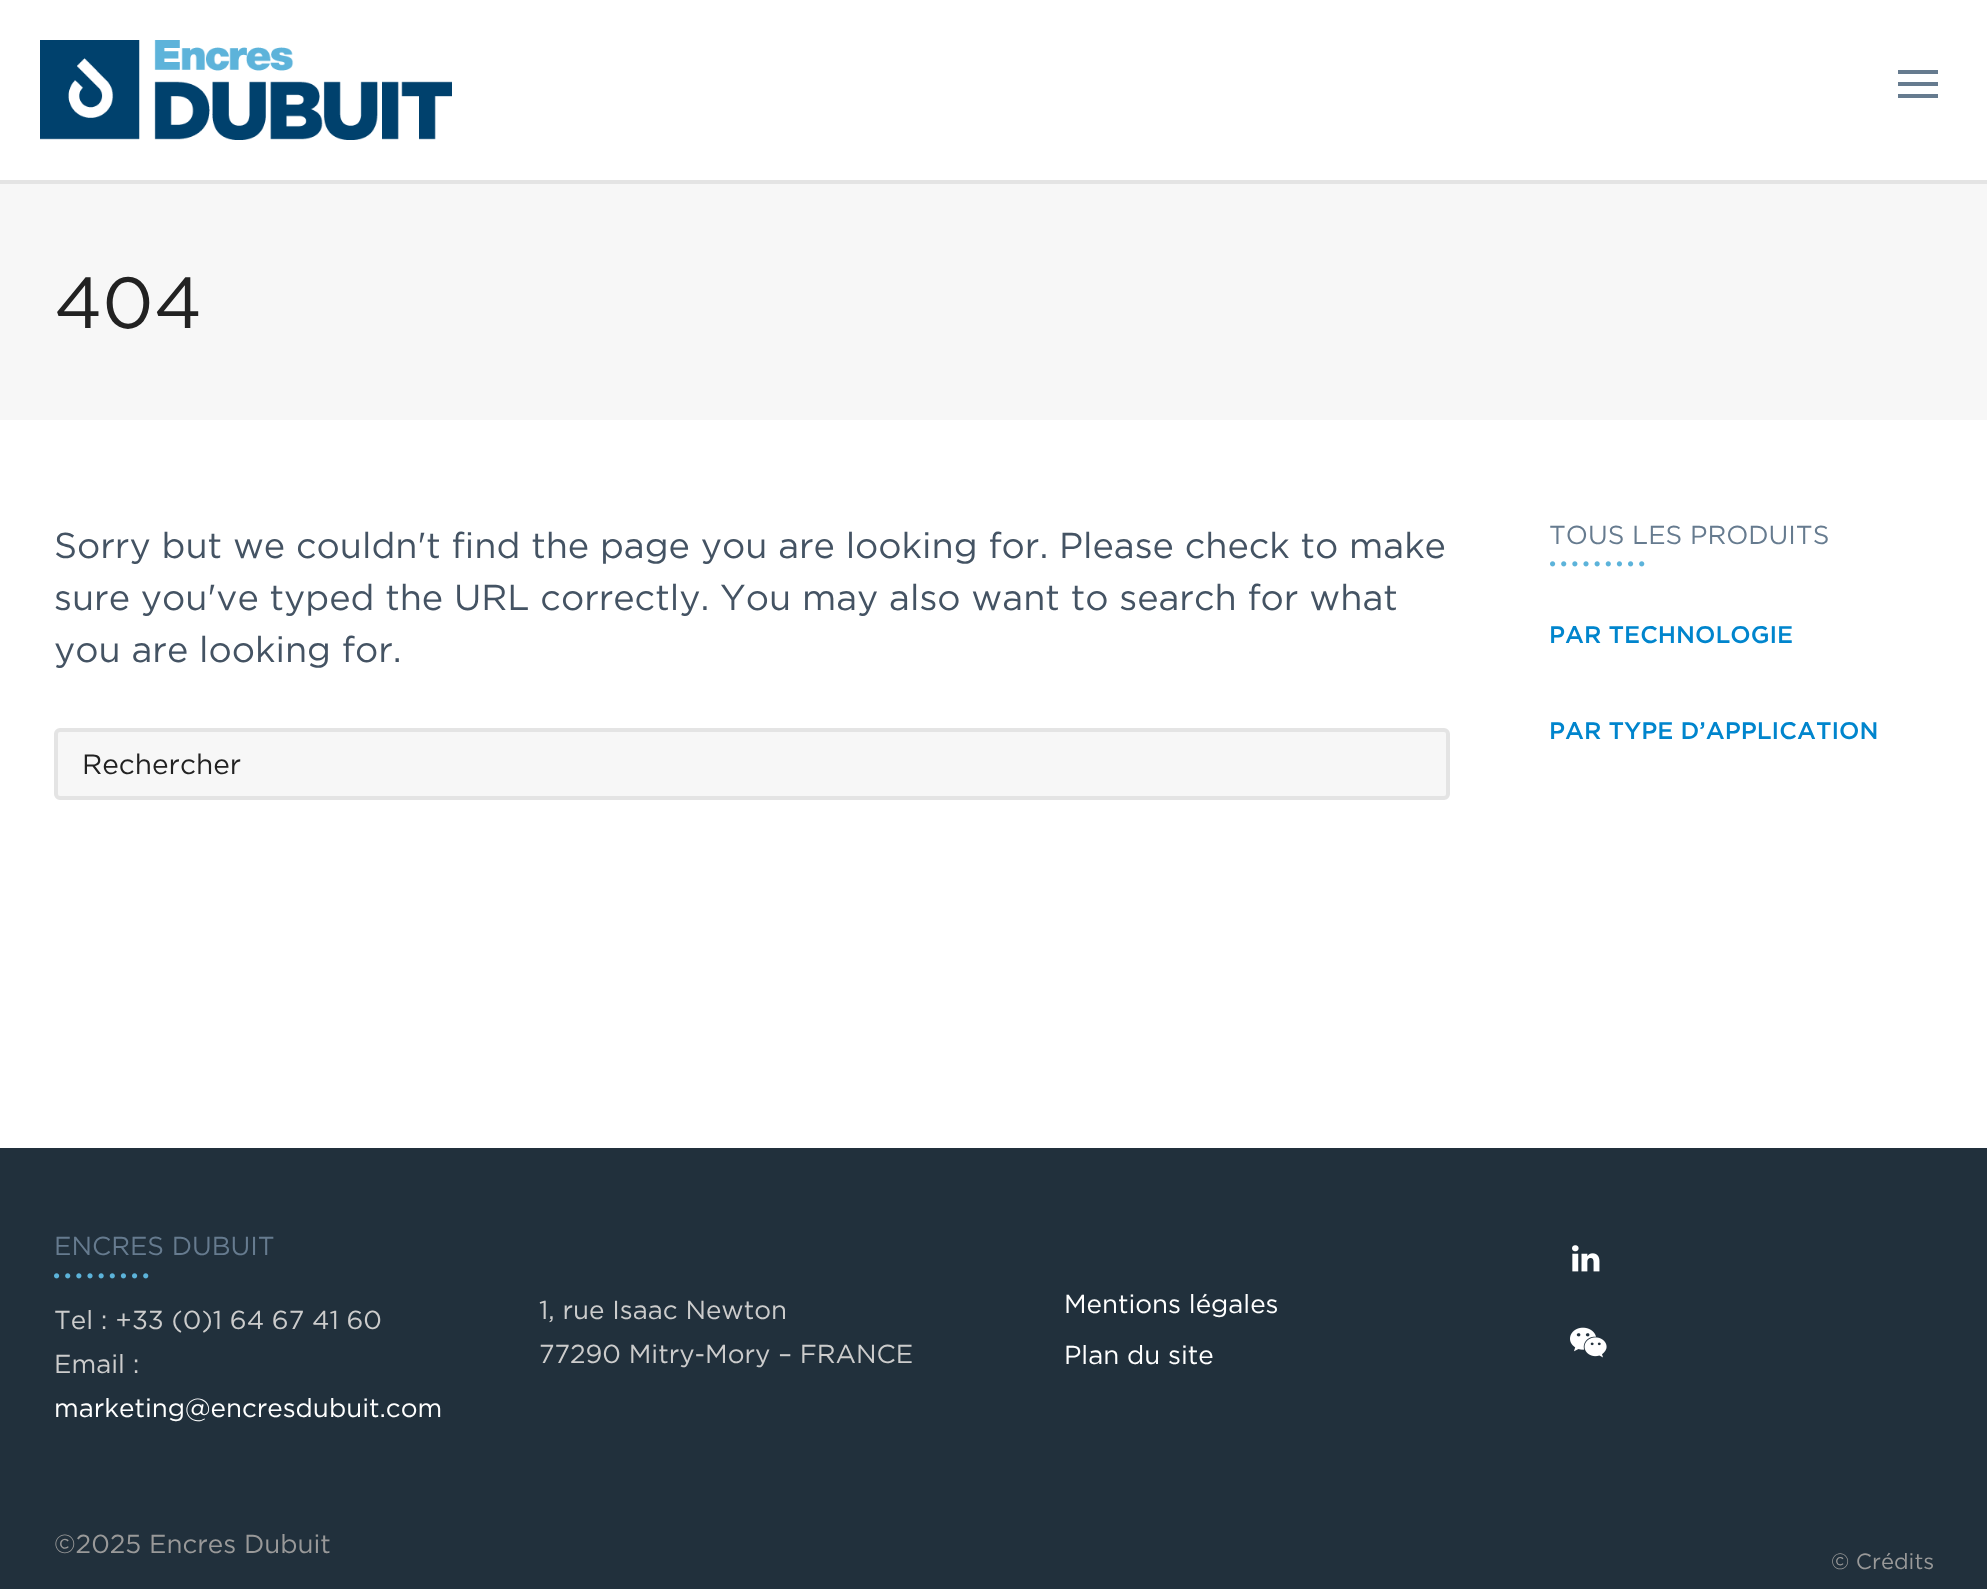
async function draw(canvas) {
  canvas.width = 1987;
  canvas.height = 1589;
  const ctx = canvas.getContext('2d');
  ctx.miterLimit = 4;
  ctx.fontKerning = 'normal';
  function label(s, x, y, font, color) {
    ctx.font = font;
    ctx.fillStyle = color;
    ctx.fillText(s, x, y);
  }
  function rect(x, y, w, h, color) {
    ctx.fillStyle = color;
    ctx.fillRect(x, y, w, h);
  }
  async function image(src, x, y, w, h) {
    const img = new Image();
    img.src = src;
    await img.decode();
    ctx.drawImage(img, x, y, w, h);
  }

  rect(0, 0, 1987, 1589, '#21303c');
  rect(0, 0, 1987, 180, '#fff');
  rect(0, 180, 1987, 4, '#e4e4e4');
  await image('assets/img1.png', 40, 40, 412, 100);
  rect(1898, 82, 40, 4, '#667b8f');
  rect(1898, 70, 40, 4, '#667b8f');
  rect(1898, 94, 40, 4, '#667b8f');
  rect(0, 420, 1987, 728, '#fff');
  rect(0, 184, 1987, 236, '#f7f7f7');
  label('404', 54, 328, '72px Gotham', '#222');
  label('Sorry but we couldn\'t find the page you are looking for. Please check to make', 54, 558, '36px Gotham', '#445363');
  label('sure you\'ve typed the URL correctly. You may also want to search for what', 54, 610, '36px Gotham', '#445363');
  label('you are looking for.', 54, 662, '36px Gotham', '#445363');
  ctx.fillStyle = '#f7f7f7';
  ctx.beginPath();
  ctx.roundRect(56, 730, 1392, 68, 4);
  ctx.fill();
  ctx.strokeStyle = '#e4e4e4';
  ctx.lineWidth = 4;
  ctx.stroke();
  label('Rechercher', 82, 774, '28px Gotham', '#222');
  label('TOUS LES PRODUITS', 1549, 544, '26px Gotham', '#667b8f');
  await image('assets/img2.png', 1550, 561, 95, 6);
  label('PAR TECHNOLOGIE', 1549, 643, '500 24px Gotham', '#0085cd');
  label('PAR TYPE D’APPLICATION', 1549, 739, '500 24px Gotham', '#0085cd');
  label('ENCRES DUBUIT', 54, 1255, '26px Gotham', '#667b8f');
  await image('assets/img3.png', 54, 1273, 95, 6);
  label('Tel : +33 (0)1 64 67 41 60', 54, 1329, '26px Gotham', '#ccc');
  label('Email :', 54, 1373, '26px Gotham', '#ccc');
  label('marketing@encresdubuit.com', 54, 1417, '26px Gotham', '#fff');
  label('1, rue Isaac Newton', 539, 1319, '26px Gotham', '#ccc');
  label('77290 Mitry-Mory – FRANCE', 539, 1363, '26px Gotham', '#ccc');
  label('Mentions légales', 1064, 1313, '26px Gotham', '#fff');
  label('Plan du site', 1064, 1364, '26px Gotham', '#fff');
  await image('assets/img4.png', 1572, 1245, 28, 27);
  await image('assets/img5.png', 1570, 1327, 37, 31);
  label('©2025 Encres Dubuit', 54, 1553, '26px Gotham', '#999');
  label('© Crédits', 1831, 1569, '22px Gotham', '#999');
}

draw(document.querySelector('canvas'));
